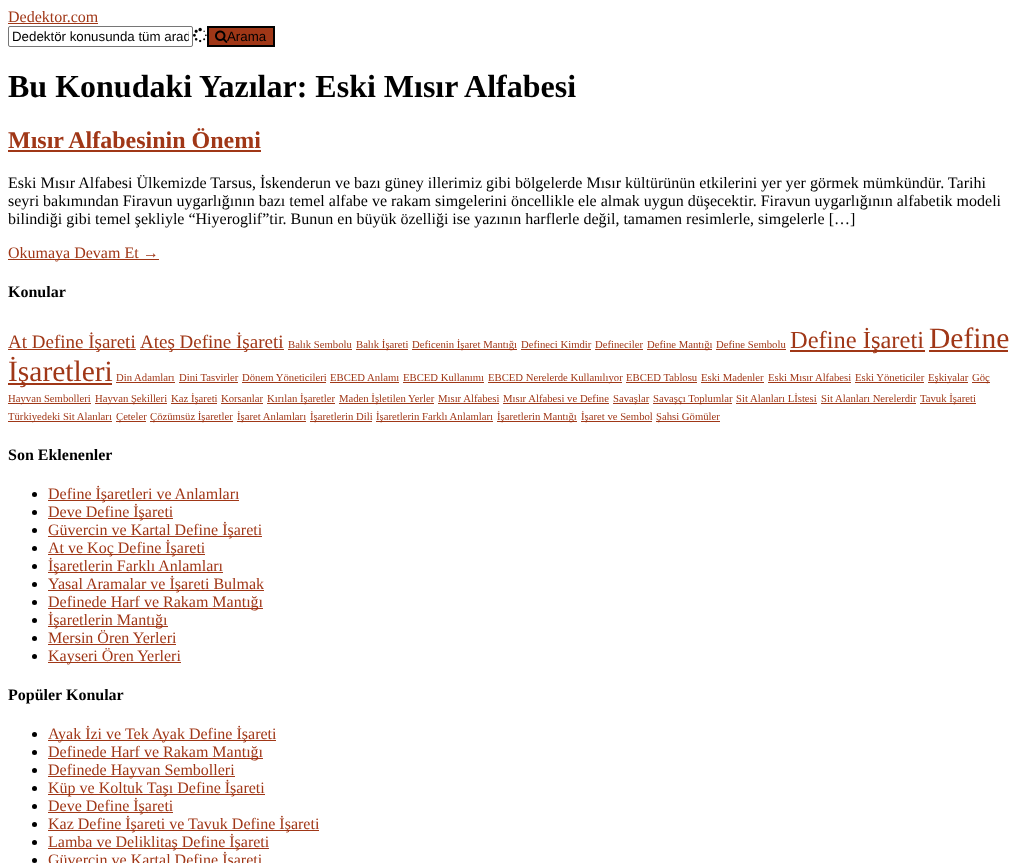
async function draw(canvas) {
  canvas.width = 1017;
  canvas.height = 863;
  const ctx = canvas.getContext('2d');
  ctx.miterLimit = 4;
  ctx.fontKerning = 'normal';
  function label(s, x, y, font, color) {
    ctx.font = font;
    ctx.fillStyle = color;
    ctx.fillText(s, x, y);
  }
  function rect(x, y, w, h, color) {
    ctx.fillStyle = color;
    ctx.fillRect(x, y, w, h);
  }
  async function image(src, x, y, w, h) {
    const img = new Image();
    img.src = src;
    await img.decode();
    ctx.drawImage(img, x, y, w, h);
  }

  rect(0, 0, 1017, 863, '#fff');
  label('Dedektor.com', 8, 22, '16px Liberation Serif', '#a03717');
  rect(8, 23, 90, 1, '#a03717');
  ctx.beginPath();
  ctx.roundRect(8.5, 26.5, 184, 20, 1.5);
  ctx.strokeStyle = '#767676';
  ctx.stroke();
  ctx.save();
  ctx.beginPath();
  ctx.rect(12, 29, 177, 15);
  ctx.clip();
  label('Dedektör konusunda tüm arad', 12, 41, '13.3px Liberation Sans', '#000');
  ctx.restore();
  await image('assets/img1.png', 193, 27, 14, 16);
  ctx.beginPath();
  ctx.rect(208, 27, 66, 19);
  ctx.fill();
  ctx.strokeStyle = '#000';
  ctx.lineWidth = 2;
  ctx.stroke();
  await image('assets/img2.png', 215, 30, 13, 13);
  label('Arama', 227, 41, '13.3px Liberation Sans', '#000');
  label('Bu Konudaki Yazılar: Eski Mısır Alfabesi', 8, 97, 'bold 32px Liberation Serif', '#000');
  label('Mısır Alfabesinin Önemi', 8, 148, 'bold 24px Liberation Serif', '#a03717');
  rect(8, 150, 253, 2, '#a03717');
  label('Eski Mısır Alfabesi Ülkemizde Tarsus, İskenderun ve bazı güney illerimiz gibi bölgelerde Mısır kültürünün etkilerini yer yer görmek mümkündür. Tarihi', 8, 188, '16px Liberation Serif', '#000');
  label('seyri bakımından Firavun uygarlığının bazı temel alfabe ve rakam simgelerini öncellikle ele almak uygun düşecektir. Firavun uygarlığının alfabetik modeli', 8, 206, '16px Liberation Serif', '#000');
  label('bilindiği gibi temel şekliyle “Hiyeroglif”tir. Bunun en büyük özelliği ise yazının harflerle değil, tamamen resimlerle, simgelerle […]', 8, 224, '16px Liberation Serif', '#000');
  rect(8, 259, 151, 1, '#a03717');
  label('Okumaya Devam Et →', 8, 258, '16px Liberation Serif', '#a03717');
  label('Konular', 8, 297, 'bold 16px Liberation Serif', '#000');
  rect(8, 349, 128, 1, '#a03717');
  label('At Define İşareti', 8, 348, '19px Liberation Serif', '#a03717');
  rect(140, 349, 144, 1, '#a03717');
  label('Ateş Define İşareti', 140, 348, '19px Liberation Serif', '#a03717');
  label('Balık Sembolu', 288, 348, '10.7px Liberation Serif', '#a03717');
  rect(288, 349, 64, 1, '#a03717');
  rect(356, 349, 52, 1, '#a03717');
  label('Balık İşareti', 356, 348, '10.7px Liberation Serif', '#a03717');
  rect(412, 349, 105, 1, '#a03717');
  label('Deficenin İşaret Mantığı', 412, 348, '10.7px Liberation Serif', '#a03717');
  label('Defineci Kimdir', 521, 348, '10.7px Liberation Serif', '#a03717');
  rect(521, 349, 70, 1, '#a03717');
  label('Defineciler', 595, 348, '10.7px Liberation Serif', '#a03717');
  rect(595, 349, 48, 1, '#a03717');
  rect(647, 349, 65, 1, '#a03717');
  label('Define Mantığı', 647, 348, '10.7px Liberation Serif', '#a03717');
  label('Define Sembolu', 716, 348, '10.7px Liberation Serif', '#a03717');
  rect(716, 349, 70, 1, '#a03717');
  rect(790, 350, 135, 2, '#a03717');
  label('Define İşareti', 790, 348, '24.5px Liberation Serif', '#a03717');
  label('Define', 929, 348, '29.5px Liberation Serif', '#a03717');
  rect(929, 350, 79, 2, '#a03717');
  rect(8, 383, 104, 2, '#a03717');
  label('İşaretleri', 8, 381, '29.5px Liberation Serif', '#a03717');
  label('Din Adamları', 116, 381, '10.7px Liberation Serif', '#a03717');
  rect(116, 382, 59, 1, '#a03717');
  label('Dini Tasvirler', 179, 381, '10.7px Liberation Serif', '#a03717');
  rect(179, 382, 59, 1, '#a03717');
  label('Dönem Yöneticileri', 242, 381, '10.7px Liberation Serif', '#a03717');
  rect(242, 382, 84, 1, '#a03717');
  label('EBCED Anlamı', 330, 381, '10.7px Liberation Serif', '#a03717');
  rect(330, 382, 69, 1, '#a03717');
  label('EBCED Kullanımı', 403, 381, '10.7px Liberation Serif', '#a03717');
  rect(403, 382, 81, 1, '#a03717');
  rect(488, 382, 134, 1, '#a03717');
  label('EBCED Nerelerde Kullanılıyor', 488, 381, '10.7px Liberation Serif', '#a03717');
  label('EBCED Tablosu', 626, 381, '10.7px Liberation Serif', '#a03717');
  rect(626, 382, 71, 1, '#a03717');
  label('Eski Madenler', 701, 381, '10.7px Liberation Serif', '#a03717');
  rect(701, 382, 63, 1, '#a03717');
  label('Eski Mısır Alfabesi', 768, 381, '10.7px Liberation Serif', '#a03717');
  rect(768, 382, 83, 1, '#a03717');
  label('Eski Yöneticiler', 855, 381, '10.7px Liberation Serif', '#a03717');
  rect(855, 382, 69, 1, '#a03717');
  rect(928, 382, 40, 1, '#a03717');
  label('Eşkiyalar', 928, 381, '10.7px Liberation Serif', '#a03717');
  rect(972, 382, 18, 1, '#a03717');
  label('Göç', 972, 381, '10.7px Liberation Serif', '#a03717');
  rect(8, 403, 83, 1, '#a03717');
  label('Hayvan Sembolleri', 8, 402, '10.7px Liberation Serif', '#a03717');
  rect(95, 403, 72, 1, '#a03717');
  label('Hayvan Şekilleri', 95, 402, '10.7px Liberation Serif', '#a03717');
  rect(171, 403, 46, 1, '#a03717');
  label('Kaz İşareti', 171, 402, '10.7px Liberation Serif', '#a03717');
  label('Korsanlar', 221, 402, '10.7px Liberation Serif', '#a03717');
  rect(221, 403, 42, 1, '#a03717');
  rect(267, 403, 68, 1, '#a03717');
  label('Kırılan İşaretler', 267, 402, '10.7px Liberation Serif', '#a03717');
  rect(339, 403, 95, 1, '#a03717');
  label('Maden İşletilen Yerler', 339, 402, '10.7px Liberation Serif', '#a03717');
  label('Mısır Alfabesi', 438, 402, '10.7px Liberation Serif', '#a03717');
  rect(438, 403, 61, 1, '#a03717');
  label('Mısır Alfabesi ve Define', 503, 402, '10.7px Liberation Serif', '#a03717');
  rect(503, 403, 106, 1, '#a03717');
  rect(613, 403, 36, 1, '#a03717');
  label('Savaşlar', 613, 402, '10.7px Liberation Serif', '#a03717');
  rect(653, 403, 79, 1, '#a03717');
  label('Savaşçı Toplumlar', 653, 402, '10.7px Liberation Serif', '#a03717');
  label('Sit Alanları Lİstesi', 736, 402, '10.7px Liberation Serif', '#a03717');
  rect(736, 403, 81, 1, '#a03717');
  label('Sit Alanları Nerelerdir', 821, 402, '10.7px Liberation Serif', '#a03717');
  rect(821, 403, 95, 1, '#a03717');
  rect(920, 403, 56, 1, '#a03717');
  label('Tavuk İşareti', 920, 402, '10.7px Liberation Serif', '#a03717');
  rect(8, 421, 104, 1, '#a03717');
  label('Türkiyedeki Sit Alanları', 8, 420, '10.7px Liberation Serif', '#a03717');
  rect(116, 421, 30, 1, '#a03717');
  label('Çeteler', 116, 420, '10.7px Liberation Serif', '#a03717');
  rect(150, 421, 83, 1, '#a03717');
  label('Çözümsüz İşaretler', 150, 420, '10.7px Liberation Serif', '#a03717');
  rect(237, 421, 69, 1, '#a03717');
  label('İşaret Anlamları', 237, 420, '10.7px Liberation Serif', '#a03717');
  rect(310, 421, 62, 1, '#a03717');
  label('İşaretlerin Dili', 310, 420, '10.7px Liberation Serif', '#a03717');
  rect(376, 421, 117, 1, '#a03717');
  label('İşaretlerin Farklı Anlamları', 376, 420, '10.7px Liberation Serif', '#a03717');
  rect(497, 421, 80, 1, '#a03717');
  label('İşaretlerin Mantığı', 497, 420, '10.7px Liberation Serif', '#a03717');
  rect(581, 421, 71, 1, '#a03717');
  label('İşaret ve Sembol', 581, 420, '10.7px Liberation Serif', '#a03717');
  rect(656, 421, 64, 1, '#a03717');
  label('Şahsi Gömüler', 656, 420, '10.7px Liberation Serif', '#a03717');
  label('Son Eklenenler', 8, 460, 'bold 16px Liberation Serif', '#000');
  ctx.beginPath();
  ctx.arc(34.5, 494.5, 2.5, 0, 2 * Math.PI);
  ctx.fill();
  rect(48, 500, 191, 1, '#a03717');
  label('Define İşaretleri ve Anlamları', 48, 499, '16px Liberation Serif', '#a03717');
  ctx.fillStyle = '#000';
  ctx.beginPath();
  ctx.arc(34.5, 512.5, 2.5, 0, 2 * Math.PI);
  ctx.fill();
  rect(48, 518, 125, 1, '#a03717');
  label('Deve Define İşareti', 48, 517, '16px Liberation Serif', '#a03717');
  ctx.fillStyle = '#000';
  ctx.beginPath();
  ctx.arc(34.5, 530.5, 2.5, 0, 2 * Math.PI);
  ctx.fill();
  rect(48, 536, 214, 1, '#a03717');
  label('Güvercin ve Kartal Define İşareti', 48, 535, '16px Liberation Serif', '#a03717');
  ctx.fillStyle = '#000';
  ctx.beginPath();
  ctx.arc(34.5, 548.5, 2.5, 0, 2 * Math.PI);
  ctx.fill();
  rect(48, 554, 157, 1, '#a03717');
  label('At ve Koç Define İşareti', 48, 553, '16px Liberation Serif', '#a03717');
  ctx.fillStyle = '#000';
  ctx.beginPath();
  ctx.arc(34.5, 566.5, 2.5, 0, 2 * Math.PI);
  ctx.fill();
  rect(48, 572, 175, 1, '#a03717');
  label('İşaretlerin Farklı Anlamları', 48, 571, '16px Liberation Serif', '#a03717');
  ctx.fillStyle = '#000';
  ctx.beginPath();
  ctx.arc(34.5, 584.5, 2.5, 0, 2 * Math.PI);
  ctx.fill();
  rect(48, 590, 216, 1, '#a03717');
  label('Yasal Aramalar ve İşareti Bulmak', 48, 589, '16px Liberation Serif', '#a03717');
  ctx.fillStyle = '#000';
  ctx.beginPath();
  ctx.arc(34.5, 602.5, 2.5, 0, 2 * Math.PI);
  ctx.fill();
  rect(48, 608, 215, 1, '#a03717');
  label('Definede Harf ve Rakam Mantığı', 48, 607, '16px Liberation Serif', '#a03717');
  ctx.fillStyle = '#000';
  ctx.beginPath();
  ctx.arc(34.5, 620.5, 2.5, 0, 2 * Math.PI);
  ctx.fill();
  rect(48, 626, 120, 1, '#a03717');
  label('İşaretlerin Mantığı', 48, 625, '16px Liberation Serif', '#a03717');
  ctx.fillStyle = '#000';
  ctx.beginPath();
  ctx.arc(34.5, 638.5, 2.5, 0, 2 * Math.PI);
  ctx.fill();
  label('Mersin Ören Yerleri', 48, 643, '16px Liberation Serif', '#a03717');
  rect(48, 644, 128, 1, '#a03717');
  ctx.fillStyle = '#000';
  ctx.beginPath();
  ctx.arc(34.5, 656.5, 2.5, 0, 2 * Math.PI);
  ctx.fill();
  rect(48, 662, 133, 1, '#a03717');
  label('Kayseri Ören Yerleri', 48, 661, '16px Liberation Serif', '#a03717');
  label('Popüler Konular', 8, 700, 'bold 16px Liberation Serif', '#000');
  ctx.beginPath();
  ctx.arc(34.5, 734.5, 2.5, 0, 2 * Math.PI);
  ctx.fill();
  rect(48, 740, 228, 1, '#a03717');
  label('Ayak İzi ve Tek Ayak Define İşareti', 48, 739, '16px Liberation Serif', '#a03717');
  ctx.fillStyle = '#000';
  ctx.beginPath();
  ctx.arc(34.5, 752.5, 2.5, 0, 2 * Math.PI);
  ctx.fill();
  rect(48, 758, 215, 1, '#a03717');
  label('Definede Harf ve Rakam Mantığı', 48, 757, '16px Liberation Serif', '#a03717');
  ctx.fillStyle = '#000';
  ctx.beginPath();
  ctx.arc(34.5, 770.5, 2.5, 0, 2 * Math.PI);
  ctx.fill();
  rect(48, 776, 187, 1, '#a03717');
  label('Definede Hayvan Sembolleri', 48, 775, '16px Liberation Serif', '#a03717');
  ctx.fillStyle = '#000';
  ctx.beginPath();
  ctx.arc(34.5, 788.5, 2.5, 0, 2 * Math.PI);
  ctx.fill();
  rect(48, 794, 217, 1, '#a03717');
  label('Küp ve Koltuk Taşı Define İşareti', 48, 793, '16px Liberation Serif', '#a03717');
  ctx.fillStyle = '#000';
  ctx.beginPath();
  ctx.arc(34.5, 806.5, 2.5, 0, 2 * Math.PI);
  ctx.fill();
  rect(48, 812, 125, 1, '#a03717');
  label('Deve Define İşareti', 48, 811, '16px Liberation Serif', '#a03717');
  ctx.fillStyle = '#000';
  ctx.beginPath();
  ctx.arc(34.5, 824.5, 2.5, 0, 2 * Math.PI);
  ctx.fill();
  rect(48, 830, 271, 1, '#a03717');
  label('Kaz Define İşareti ve Tavuk Define İşareti', 48, 829, '16px Liberation Serif', '#a03717');
  ctx.fillStyle = '#000';
  ctx.beginPath();
  ctx.arc(34.5, 842.5, 2.5, 0, 2 * Math.PI);
  ctx.fill();
  rect(48, 848, 221, 1, '#a03717');
  label('Lamba ve Deliklitaş Define İşareti', 48, 847, '16px Liberation Serif', '#a03717');
  ctx.fillStyle = '#000';
  ctx.beginPath();
  ctx.arc(34.5, 860.5, 2.5, 0, 2 * Math.PI);
  ctx.fill();
  label('Güvercin ve Kartal Define İşareti', 48, 865, '16px Liberation Serif', '#a03717');
}

draw(document.querySelector('canvas'));
